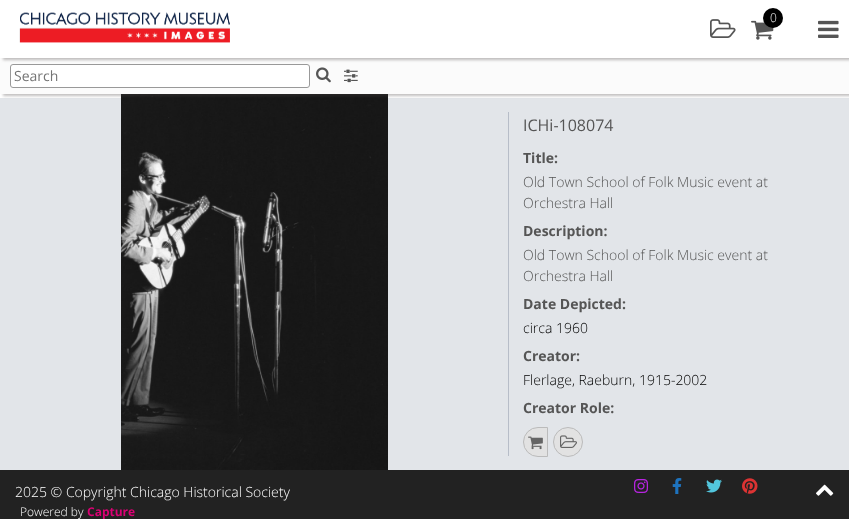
async function draw(canvas) {
  canvas.width = 849;
  canvas.height = 519;
  const ctx = canvas.getContext('2d');
  ctx.miterLimit = 4;
  ctx.fontKerning = 'normal';
  function label(s, x, y, font, color) {
    ctx.font = font;
    ctx.fillStyle = color;
    ctx.fillText(s, x, y);
  }
  function rect(x, y, w, h, color) {
    ctx.fillStyle = color;
    ctx.fillRect(x, y, w, h);
  }
  async function image(src, x, y, w, h) {
    const img = new Image();
    img.src = src;
    await img.decode();
    ctx.drawImage(img, x, y, w, h);
  }

  rect(0, 0, 849, 519, '#fff');
  rect(0, 98, 849, 372, '#e2e5e9');
  await image('assets/img7.png', 121, 94, 267, 376);
  ctx.fillStyle = '#4a454559';
  ctx.filter = 'blur(1.5px)';
  ctx.beginPath();
  ctx.rect(3, 60, 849, 36);
  ctx.fill();
  ctx.filter = 'none';
  rect(0, 58, 849, 36, '#fbfbfb');
  ctx.fillStyle = '#fff';
  ctx.beginPath();
  ctx.roundRect(10.5, 64.5, 299, 23, 2.5);
  ctx.fill();
  ctx.strokeStyle = '#999';
  ctx.stroke();
  ctx.fillStyle = '#4a454559';
  ctx.filter = 'blur(1.5px)';
  ctx.beginPath();
  ctx.rect(3, 2, 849, 58);
  ctx.fill();
  ctx.filter = 'none';
  rect(0, 0, 849, 58, '#fff');
  await image('assets/img1.png', 19, 12, 211, 31);
  await image('assets/img2.png', 751, 20, 23, 20);
  ctx.fillStyle = '#000';
  ctx.beginPath();
  ctx.arc(773, 18, 10, 0, 2 * Math.PI);
  ctx.fill();
  label('0', 770, 22, '300 12px Open Sans', '#fff');
  await image('assets/img3.png', 710, 19, 26, 19);
  await image('assets/img4.png', 818, 20, 21, 18);
  label('Search', 14, 81, '14px Open Sans', '#757575');
  await image('assets/img5.png', 316, 67, 15, 16);
  await image('assets/img6.png', 344, 69, 14, 14);
  rect(508, 112, 1, 344, '#b7bdc8');
  label('ICHi-108074', 523, 131, '16px Open Sans', '#555');
  label('Title:', 523, 163, 'bold 14px Open Sans', '#555');
  label('Old Town School of Folk Music event at', 523, 187, '300 14px Open Sans', '#555');
  label('Orchestra Hall', 523, 208, '300 14px Open Sans', '#555');
  label('Description:', 523, 236, 'bold 14px Open Sans', '#555');
  label('Old Town School of Folk Music event at', 523, 260, '300 14px Open Sans', '#555');
  label('Orchestra Hall', 523, 281, '300 14px Open Sans', '#555');
  label('Date Depicted:', 523, 309, 'bold 14px Open Sans', '#555');
  label('circa 1960', 523, 333, '300 14px Open Sans', '#000');
  label('Creator:', 523, 361, 'bold 14px Open Sans', '#555');
  label('Flerlage, Raeburn, 1915-2002', 523, 385, '300 14px Open Sans', '#000');
  label('Creator Role:', 523, 413, 'bold 14px Open Sans', '#555');
  ctx.fillStyle = '#e2e2e2';
  ctx.beginPath();
  ctx.roundRect(523.5, 427.5, 24, 29, [14.5, 0, 0, 14.5]);
  ctx.fill();
  ctx.strokeStyle = '#bbb';
  ctx.stroke();
  await image('assets/img8.png', 528, 436, 15, 14);
  ctx.beginPath();
  ctx.arc(568, 442, 14.5, 0, 2 * Math.PI);
  ctx.fill();
  ctx.stroke();
  await image('assets/img9.png', 560, 435, 17, 13);
  rect(0, 470, 849, 49, '#222');
  label('2025 © Copyright Chicago Historical Society', 15, 497, '300 14px Open Sans', '#fff');
  label('Powered by', 20, 516, '300 12px Open Sans', '#fff');
  label('Capture', 87, 516, 'bold 12px Open Sans', '#db0074');
  await image('assets/img10.png', 634, 479, 14, 14);
  await image('assets/img11.png', 672, 478, 10, 16);
  await image('assets/img12.png', 706, 479, 16, 14);
  await image('assets/img13.png', 742, 478, 16, 16);
  await image('assets/img14.png', 816, 484, 18, 12);
}

draw(document.querySelector('canvas'));
